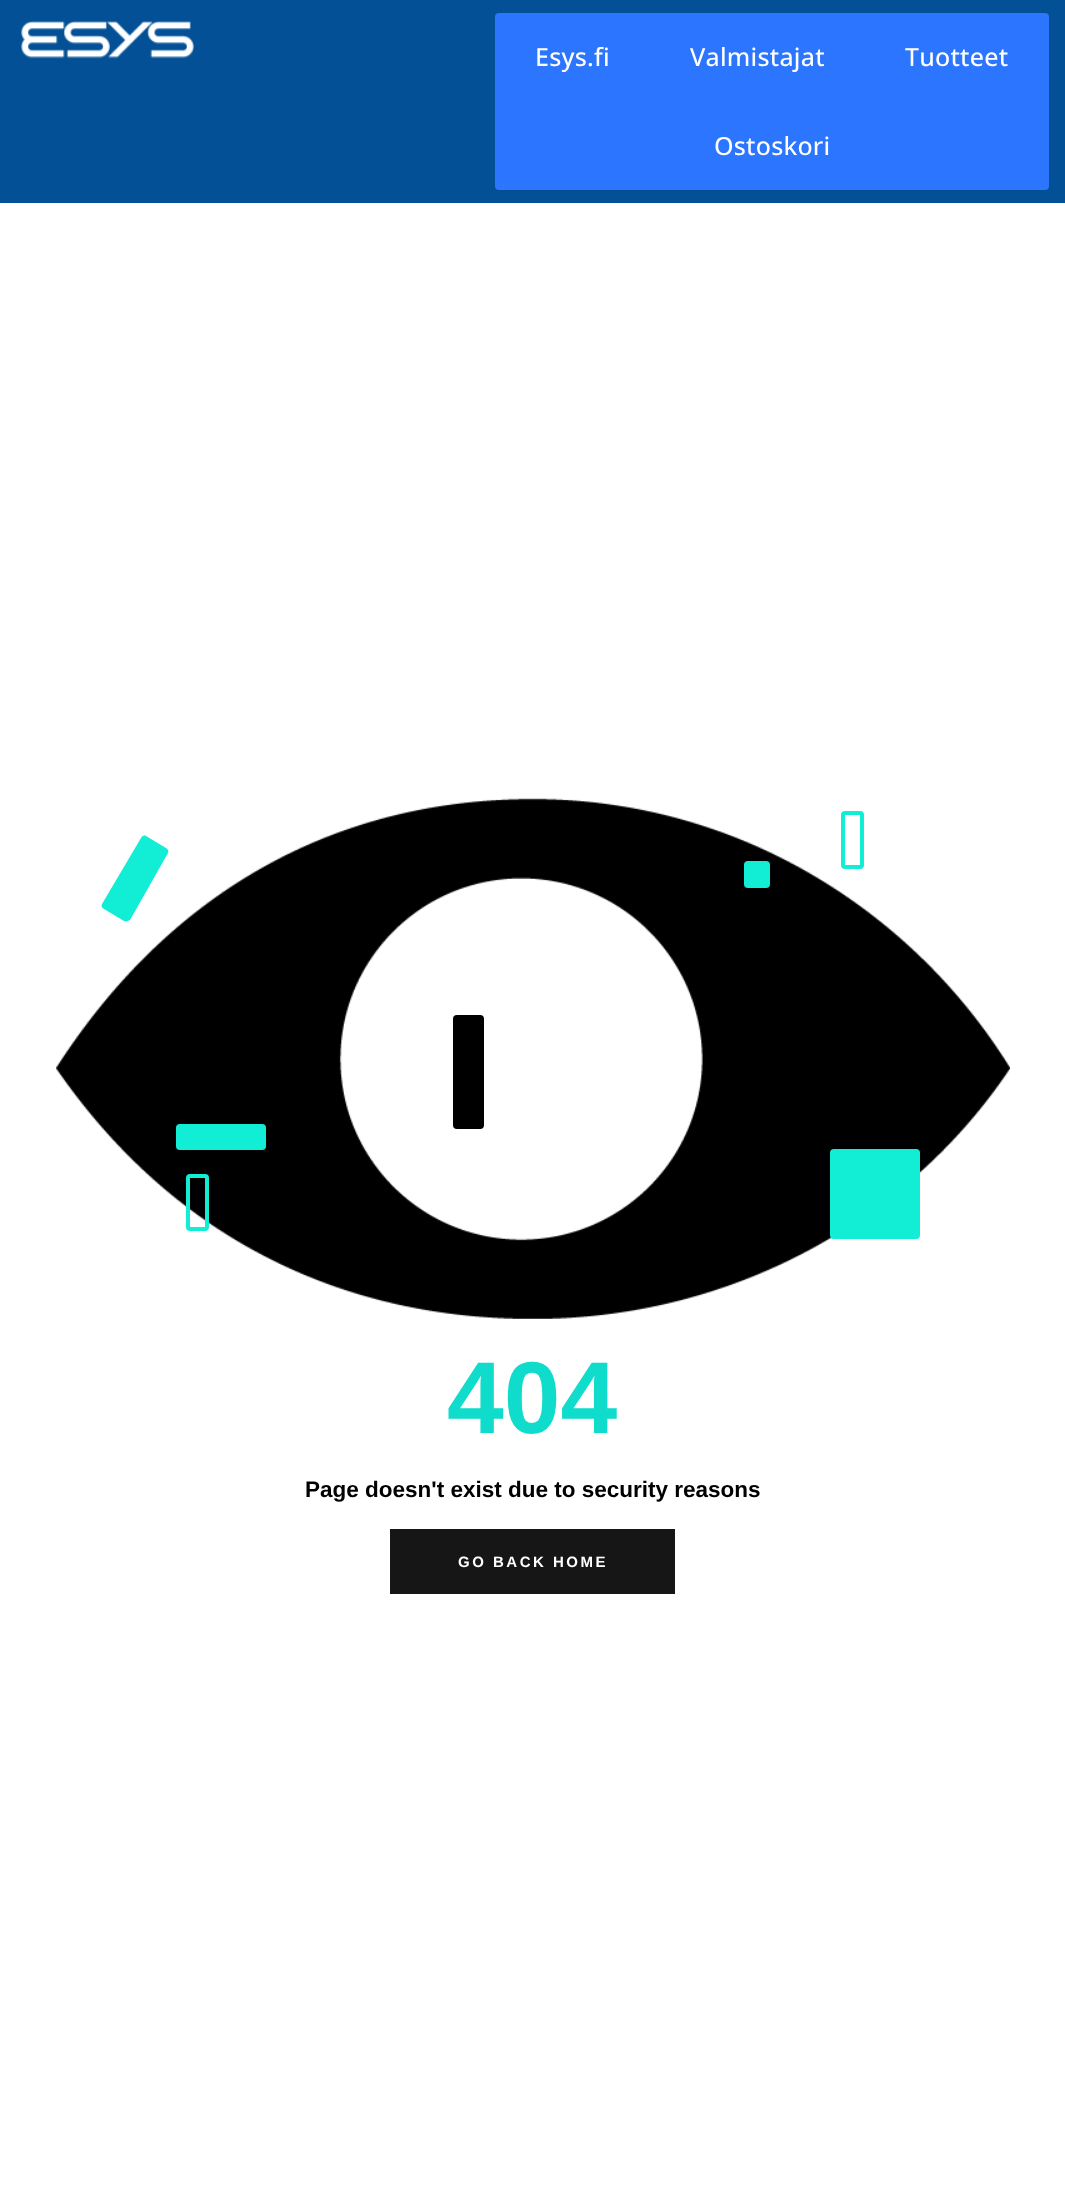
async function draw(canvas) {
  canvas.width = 1065;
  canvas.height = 2188;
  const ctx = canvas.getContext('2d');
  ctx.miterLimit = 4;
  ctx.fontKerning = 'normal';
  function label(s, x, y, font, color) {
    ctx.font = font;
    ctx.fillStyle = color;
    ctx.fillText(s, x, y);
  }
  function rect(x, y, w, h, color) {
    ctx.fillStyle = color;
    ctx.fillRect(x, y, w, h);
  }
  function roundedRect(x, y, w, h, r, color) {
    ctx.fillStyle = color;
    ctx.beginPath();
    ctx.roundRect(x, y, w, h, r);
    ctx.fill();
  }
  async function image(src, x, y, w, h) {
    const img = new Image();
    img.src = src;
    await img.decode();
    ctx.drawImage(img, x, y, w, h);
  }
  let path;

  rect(0, 0, 1065, 2188, '#fff');
  rect(0, 0, 1065, 203, '#035096');
  await image('assets/img1.png', 21, 21, 173, 38);
  roundedRect(495, 13, 554, 177, 4, '#2c75ff');
  ctx.letterSpacing = '0.25px';
  label('Esys.fi', 535, 66, '500 25px Open Sans', '#fff');
  label('Valmistajat', 690, 66, '500 25px Open Sans', '#fff');
  label('Tuotteet', 905, 66, '500 25px Open Sans', '#fff');
  label('Ostoskori', 714, 155, '500 25px Open Sans', '#fff');
  roundedRect(453, 1015, 31, 114, 4, '#000');
  await image('assets/img2.png', 56, 798, 954, 521);
  ctx.fillStyle = '#12edd6';
  path = new Path2D('M124 921L104 909C102 908 101 906 102 904L141 838C142 836 144 835 146 836L166 848C168 849 169 852 168 853L130 920C128 921 126 922 124 921Z');
  ctx.fill(path);
  roundedRect(744, 861, 26, 27, 4, '#12edd6');
  ctx.beginPath();
  ctx.roundRect(843, 813, 19, 54, 2);
  ctx.strokeStyle = '#12edd6';
  ctx.lineWidth = 4;
  ctx.stroke();
  roundedRect(176, 1124, 90, 26, 4, '#12edd6');
  ctx.beginPath();
  ctx.roundRect(188, 1176, 19, 53, 2);
  ctx.stroke();
  roundedRect(830, 1149, 90, 90, 4, '#12edd6');
  ctx.letterSpacing = '0px';
  label('404', 447, 1433, 'bold 102px Liberation Sans', '#10dccb');
  label('Page doesn\'t exist due to security reasons', 305, 1497, 'bold 22.5px Liberation Sans', '#000');
  rect(390, 1529, 285, 65, '#171616');
  ctx.letterSpacing = '2.5px';
  label('GO BACK HOME', 458, 1567, 'bold 15px Liberation Sans', '#fff');
}

draw(document.querySelector('canvas'));
